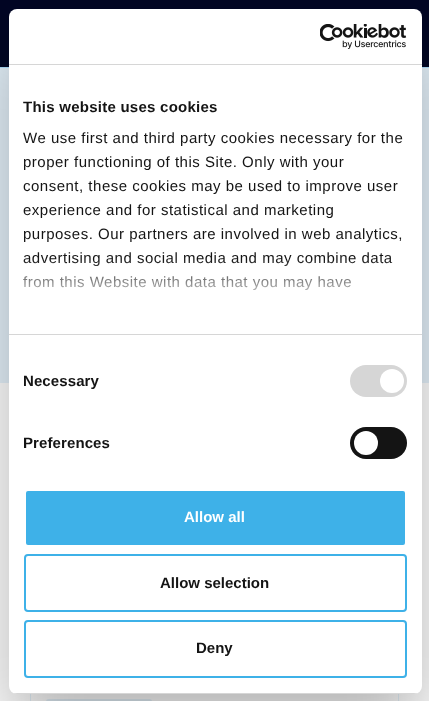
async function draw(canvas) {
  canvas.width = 429;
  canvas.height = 701;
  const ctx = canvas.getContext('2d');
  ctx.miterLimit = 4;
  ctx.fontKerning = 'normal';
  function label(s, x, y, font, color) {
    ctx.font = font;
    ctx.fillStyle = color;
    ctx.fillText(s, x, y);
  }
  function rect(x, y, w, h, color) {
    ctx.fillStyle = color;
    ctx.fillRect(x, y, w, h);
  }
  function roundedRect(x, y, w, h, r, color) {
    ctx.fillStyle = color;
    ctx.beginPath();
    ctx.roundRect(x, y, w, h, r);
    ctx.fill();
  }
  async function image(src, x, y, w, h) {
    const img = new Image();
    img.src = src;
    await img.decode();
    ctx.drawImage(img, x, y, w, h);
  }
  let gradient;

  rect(0, 0, 429, 701, '#fff');
  rect(0, 0, 429, 67, '#020624');
  rect(0, 67, 429, 1, '#b2e2ff');
  rect(0, 68, 429, 315, '#e6f3fc');
  ctx.strokeStyle = '#e6f3fc';
  ctx.strokeRect(30.5, 488.5, 368, 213);
  roundedRect(46, 699, 106, 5, 3, '#e6f3fc');
  ctx.fillStyle = '#0000004d';
  ctx.filter = 'blur(34px)';
  ctx.beginPath();
  ctx.roundRect(9, 41, 413, 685, 8);
  ctx.fill();
  ctx.filter = 'none';
  roundedRect(9, 9, 413, 685, 8, '#fff');
  rect(9, 64, 413, 1, '#d6d6d6');
  await image('assets/img1.png', 320, 24, 87, 25);
  rect(9, 334, 413, 1, '#d6d6d6');
  ctx.letterSpacing = '0.25px';
  label('This website uses cookies', 23, 112, 'bold 15px Liberation Sans', '#141414');
  ctx.letterSpacing = '0.5px';
  label('We use first and third party cookies necessary for the', 23, 143, '15px Liberation Sans', '#141414');
  label('proper functioning of this Site. Only with your', 23, 167, '15px Liberation Sans', '#141414');
  label('consent, these cookies may be used to improve user', 23, 191, '15px Liberation Sans', '#141414');
  label('experience and for statistical and marketing', 23, 215, '15px Liberation Sans', '#141414');
  label('purposes. Our partners are involved in web analytics,', 23, 239, '15px Liberation Sans', '#141414');
  label('advertising and social media and may combine data', 23, 263, '15px Liberation Sans', '#141414');
  label('from this Website with data that you may have', 23, 287, '15px Liberation Sans', '#141414');
  gradient = ctx.createLinearGradient(209, 334, 209, 259);
  gradient.addColorStop(0, '#fff');
  gradient.addColorStop(0.5, '#ffffffcc');
  gradient.addColorStop(1, '#ffffff00');
  ctx.fillStyle = gradient;
  ctx.fillRect(23, 260, 370, 31);
  ctx.letterSpacing = '0.1px';
  label('Necessary', 23, 386, 'bold 15px Liberation Sans', '#141414');
  roundedRect(350, 365, 57, 32, 16, '#d6d6d6');
  ctx.fillStyle = '#fff';
  ctx.beginPath();
  ctx.arc(392, 381, 12, 0, 2 * Math.PI);
  ctx.fill();
  label('Preferences', 23, 448, 'bold 15px Liberation Sans', '#141414');
  roundedRect(350, 427, 57, 32, 16, '#141414');
  ctx.fillStyle = '#fff';
  ctx.beginPath();
  ctx.arc(366, 443, 12, 0, 2 * Math.PI);
  ctx.fill();
  ctx.save();
  ctx.beginPath();
  ctx.roundRect(9, 9, 413, 685, 8);
  ctx.clip();
  rect(9, 693, 413, 1, '#d6d6d6');
  ctx.restore();
  ctx.fillStyle = '#3eb1e8';
  ctx.beginPath();
  ctx.roundRect(25, 490, 381, 56, 3);
  ctx.fill();
  ctx.strokeStyle = '#fff';
  ctx.lineWidth = 2;
  ctx.stroke();
  ctx.letterSpacing = '0px';
  label('Allow all', 184, 522, 'bold 15px Liberation Sans', '#fff');
  ctx.beginPath();
  ctx.roundRect(25, 555, 381, 56, 3);
  ctx.strokeStyle = '#3eb1e8';
  ctx.stroke();
  label('Allow selection', 160, 588, 'bold 15px Liberation Sans', '#141414');
  ctx.beginPath();
  ctx.roundRect(25, 621, 381, 56, 3);
  ctx.stroke();
  label('Deny', 196, 653, 'bold 15px Liberation Sans', '#141414');
}

draw(document.querySelector('canvas'));
